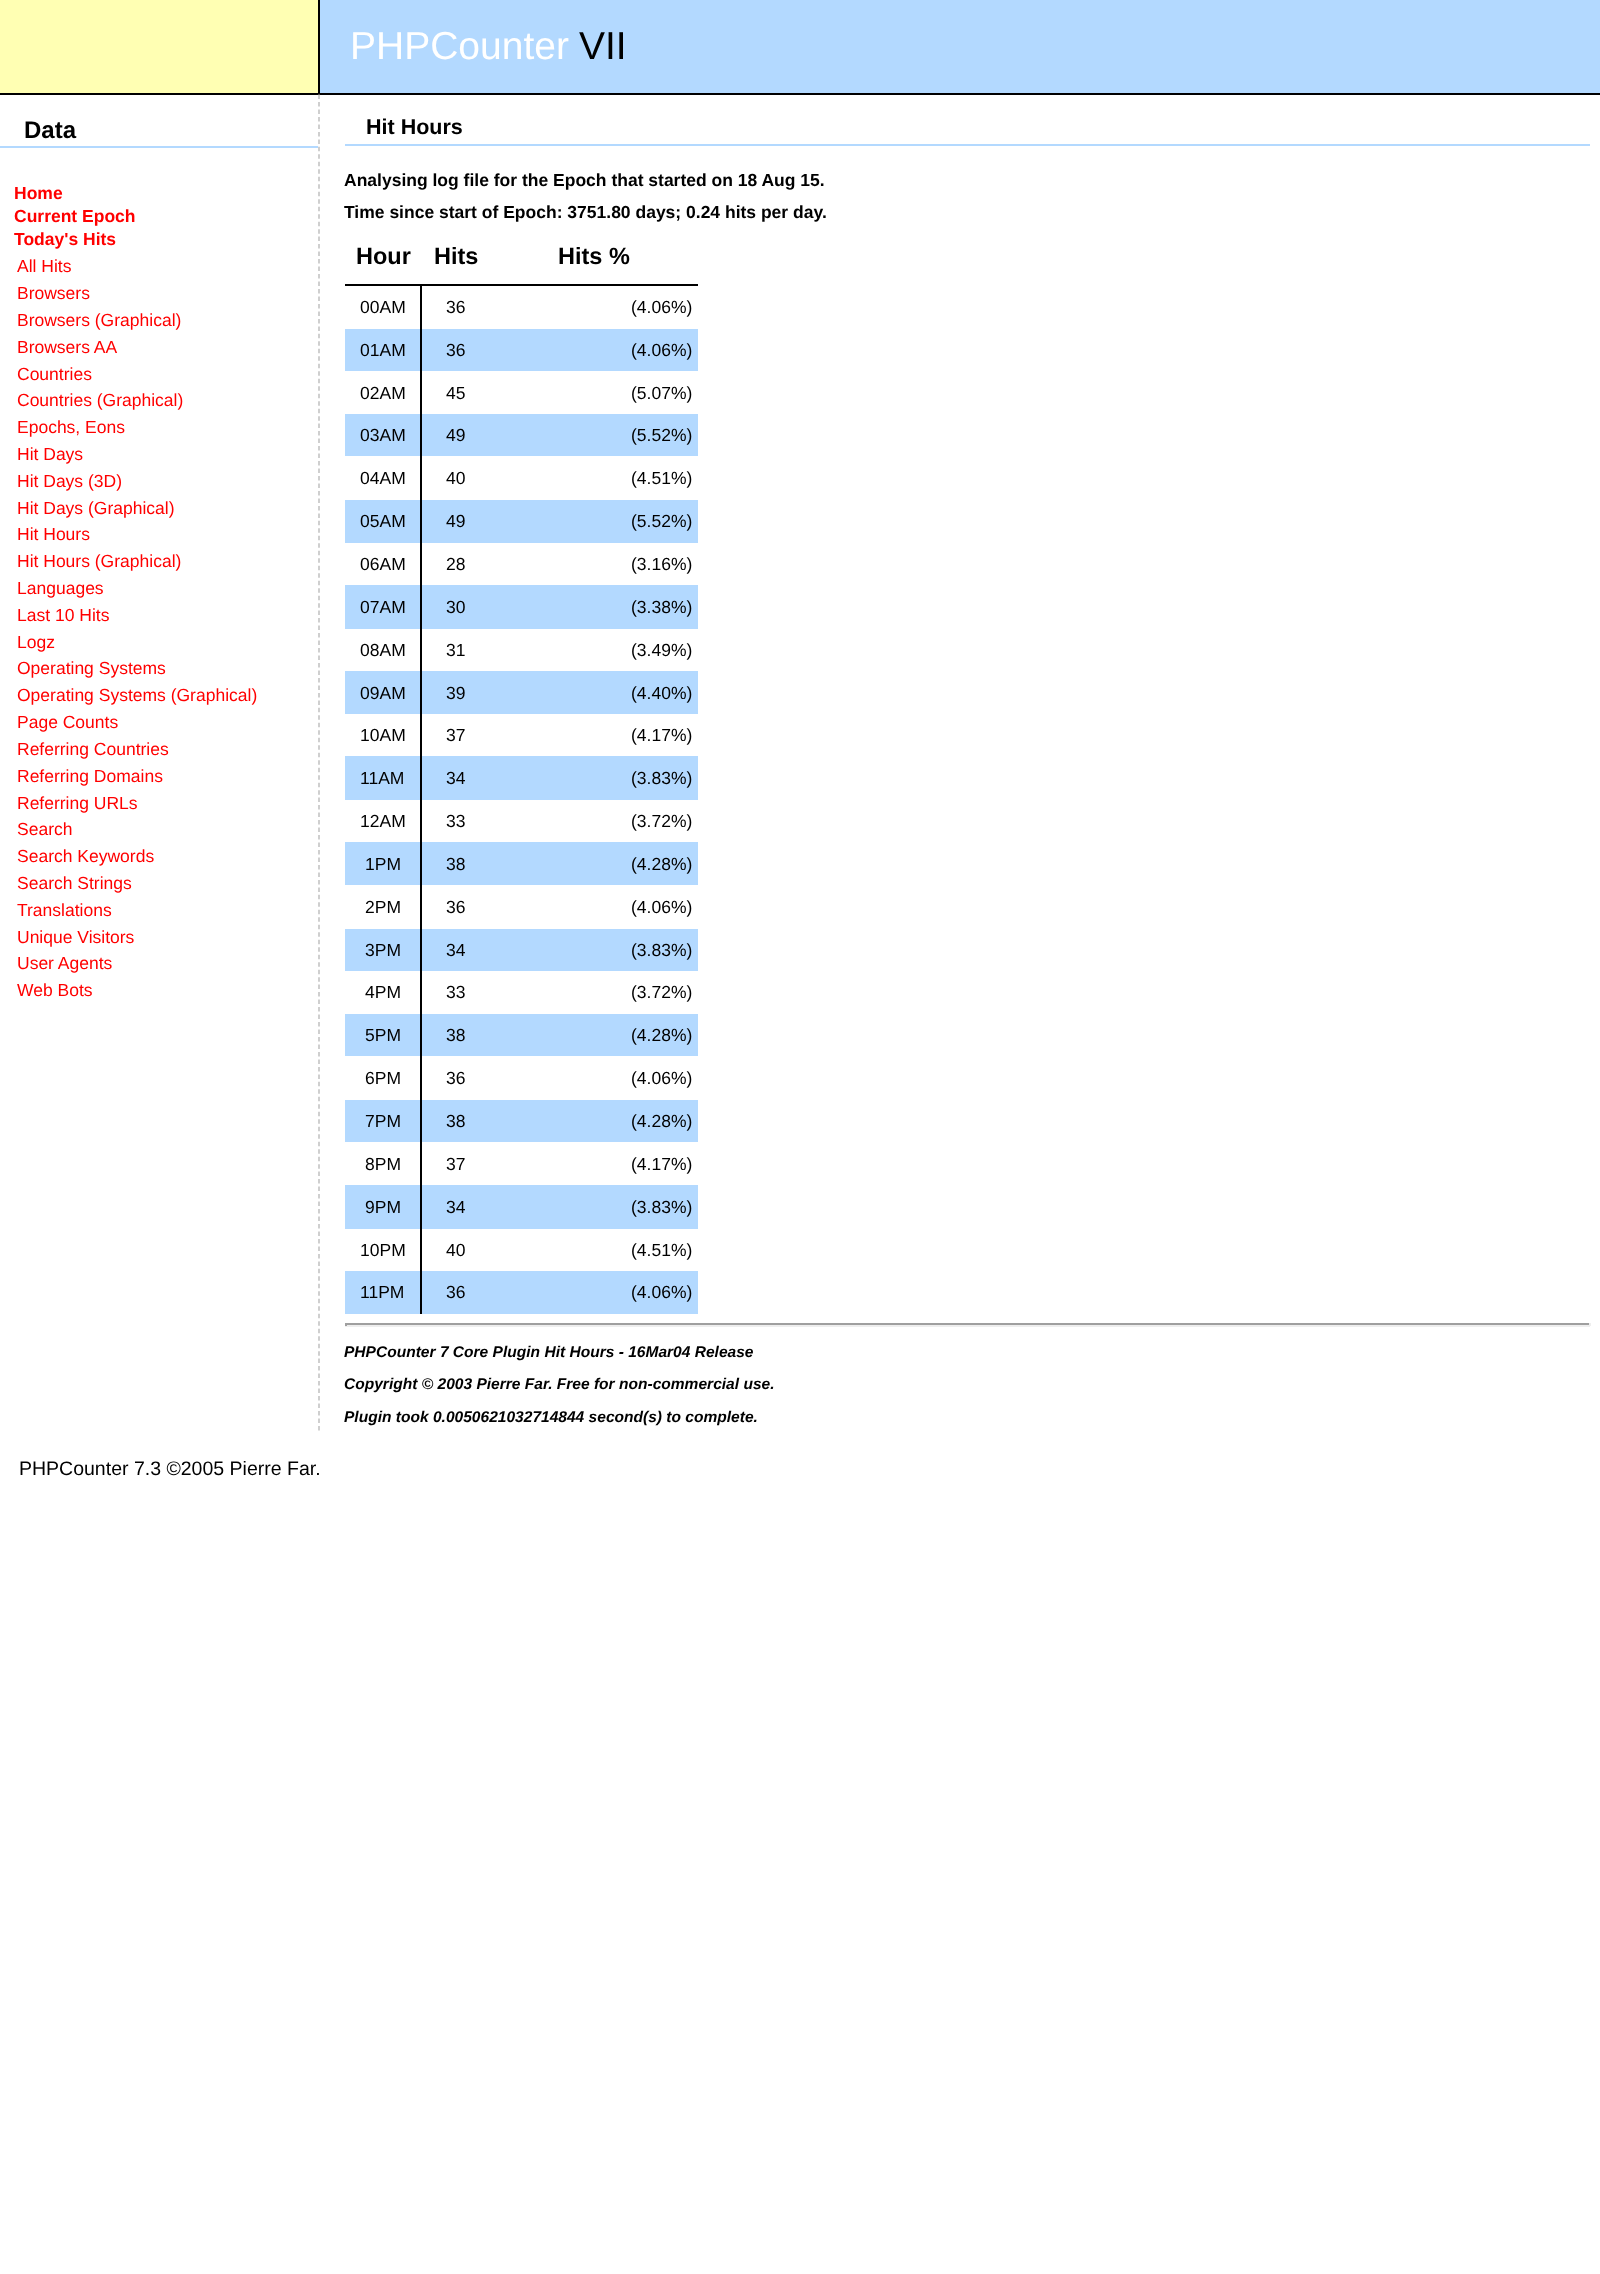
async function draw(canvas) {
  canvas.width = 1600;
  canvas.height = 2274;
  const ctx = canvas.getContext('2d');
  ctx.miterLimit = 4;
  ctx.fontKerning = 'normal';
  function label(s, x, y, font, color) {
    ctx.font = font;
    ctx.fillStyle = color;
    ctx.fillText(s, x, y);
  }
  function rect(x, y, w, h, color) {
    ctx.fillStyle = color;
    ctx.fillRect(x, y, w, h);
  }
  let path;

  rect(0, 0, 1600, 2274, '#fff');
  rect(0, 0, 318, 93, '#ffffb3');
  rect(318, 0, 2, 95, '#000');
  rect(0, 93, 1600, 2, '#000');
  rect(320, 0, 1280, 93, '#b3d9ff');
  label('PHPCounter', 350, 59, '39px Liberation Sans', '#fff');
  label('VII', 579, 59, '39px Liberation Sans', '#000');
  path = new Path2D('M319 94.5V1432.5');
  ctx.strokeStyle = '#c0c0c0';
  ctx.lineWidth = 1.5;
  ctx.setLineDash([4.5, 2.98]);
  ctx.stroke(path);
  rect(0, 146, 318, 2, '#b3d9ff');
  label('Data', 24, 138, 'bold 24px Liberation Sans', '#000');
  label('Home', 14, 199, 'bold 17.5px Liberation Sans', '#f00');
  label('Current Epoch', 14, 222, 'bold 17.5px Liberation Sans', '#f00');
  label('Today\'s Hits', 14, 245, 'bold 17.5px Liberation Sans', '#f00');
  label('All Hits', 17, 272, '17.5px Liberation Sans', '#f00');
  label('Browsers', 17, 299, '17.5px Liberation Sans', '#f00');
  label('Browsers (Graphical)', 17, 326, '17.5px Liberation Sans', '#f00');
  label('Browsers AA', 17, 353, '17.5px Liberation Sans', '#f00');
  label('Countries', 17, 380, '17.5px Liberation Sans', '#f00');
  label('Countries (Graphical)', 17, 406, '17.5px Liberation Sans', '#f00');
  label('Epochs, Eons', 17, 433, '17.5px Liberation Sans', '#f00');
  label('Hit Days', 17, 460, '17.5px Liberation Sans', '#f00');
  label('Hit Days (3D)', 17, 487, '17.5px Liberation Sans', '#f00');
  label('Hit Days (Graphical)', 17, 514, '17.5px Liberation Sans', '#f00');
  label('Hit Hours', 17, 540, '17.5px Liberation Sans', '#f00');
  label('Hit Hours (Graphical)', 17, 567, '17.5px Liberation Sans', '#f00');
  label('Languages', 17, 594, '17.5px Liberation Sans', '#f00');
  label('Last 10 Hits', 17, 621, '17.5px Liberation Sans', '#f00');
  label('Logz', 17, 648, '17.5px Liberation Sans', '#f00');
  label('Operating Systems', 17, 674, '17.5px Liberation Sans', '#f00');
  label('Operating Systems (Graphical)', 17, 701, '17.5px Liberation Sans', '#f00');
  label('Page Counts', 17, 728, '17.5px Liberation Sans', '#f00');
  label('Referring Countries', 17, 755, '17.5px Liberation Sans', '#f00');
  label('Referring Domains', 17, 782, '17.5px Liberation Sans', '#f00');
  label('Referring URLs', 17, 809, '17.5px Liberation Sans', '#f00');
  label('Search', 17, 835, '17.5px Liberation Sans', '#f00');
  label('Search Keywords', 17, 862, '17.5px Liberation Sans', '#f00');
  label('Search Strings', 17, 889, '17.5px Liberation Sans', '#f00');
  label('Translations', 17, 916, '17.5px Liberation Sans', '#f00');
  label('Unique Visitors', 17, 943, '17.5px Liberation Sans', '#f00');
  label('User Agents', 17, 969, '17.5px Liberation Sans', '#f00');
  label('Web Bots', 17, 996, '17.5px Liberation Sans', '#f00');
  rect(345, 144, 1245, 2, '#b3d9ff');
  label('Hit Hours', 366, 134, 'bold 21.5px Liberation Sans', '#000');
  label('Analysing log file for the Epoch that started on 18 Aug 15.', 344, 186, 'bold 17.5px Liberation Sans', '#000');
  label('Time since start of Epoch: 3751.80 days; 0.24 hits per day.', 344, 218, 'bold 17.5px Liberation Sans', '#000');
  rect(345, 284, 353, 2, '#000');
  label('Hour', 356, 264, 'bold 23.5px Liberation Sans', '#000');
  label('Hits', 434, 264, 'bold 23.5px Liberation Sans', '#000');
  label('Hits %', 558, 264, 'bold 23.5px Liberation Sans', '#000');
  rect(420, 285, 2, 44, '#000');
  label('00AM', 360, 313, '17.5px Liberation Sans', '#000');
  label('36', 446, 313, '17.5px Liberation Sans', '#000');
  label('(4.06%)', 631, 313, '17.5px Liberation Sans', '#000');
  rect(345, 329, 353, 42, '#b3d9ff');
  rect(420, 329, 2, 85, '#000');
  label('01AM', 360, 356, '17.5px Liberation Sans', '#000');
  label('36', 446, 356, '17.5px Liberation Sans', '#000');
  label('(4.06%)', 631, 356, '17.5px Liberation Sans', '#000');
  label('02AM', 360, 399, '17.5px Liberation Sans', '#000');
  label('45', 446, 399, '17.5px Liberation Sans', '#000');
  label('(5.07%)', 631, 399, '17.5px Liberation Sans', '#000');
  rect(345, 414, 353, 42, '#b3d9ff');
  rect(420, 414, 2, 86, '#000');
  label('03AM', 360, 441, '17.5px Liberation Sans', '#000');
  label('49', 446, 441, '17.5px Liberation Sans', '#000');
  label('(5.52%)', 631, 441, '17.5px Liberation Sans', '#000');
  label('04AM', 360, 484, '17.5px Liberation Sans', '#000');
  label('40', 446, 484, '17.5px Liberation Sans', '#000');
  label('(4.51%)', 631, 484, '17.5px Liberation Sans', '#000');
  rect(345, 500, 353, 43, '#b3d9ff');
  rect(420, 500, 2, 85, '#000');
  label('05AM', 360, 527, '17.5px Liberation Sans', '#000');
  label('49', 446, 527, '17.5px Liberation Sans', '#000');
  label('(5.52%)', 631, 527, '17.5px Liberation Sans', '#000');
  label('06AM', 360, 570, '17.5px Liberation Sans', '#000');
  label('28', 446, 570, '17.5px Liberation Sans', '#000');
  label('(3.16%)', 631, 570, '17.5px Liberation Sans', '#000');
  rect(345, 585, 353, 44, '#b3d9ff');
  rect(420, 585, 2, 86, '#000');
  label('07AM', 360, 613, '17.5px Liberation Sans', '#000');
  label('30', 446, 613, '17.5px Liberation Sans', '#000');
  label('(3.38%)', 631, 613, '17.5px Liberation Sans', '#000');
  label('08AM', 360, 656, '17.5px Liberation Sans', '#000');
  label('31', 446, 656, '17.5px Liberation Sans', '#000');
  label('(3.49%)', 631, 656, '17.5px Liberation Sans', '#000');
  rect(345, 671, 353, 43, '#b3d9ff');
  rect(420, 671, 2, 85, '#000');
  label('09AM', 360, 699, '17.5px Liberation Sans', '#000');
  label('39', 446, 699, '17.5px Liberation Sans', '#000');
  label('(4.40%)', 631, 699, '17.5px Liberation Sans', '#000');
  label('10AM', 360, 741, '17.5px Liberation Sans', '#000');
  label('37', 446, 741, '17.5px Liberation Sans', '#000');
  label('(4.17%)', 631, 741, '17.5px Liberation Sans', '#000');
  rect(345, 756, 353, 44, '#b3d9ff');
  rect(420, 756, 2, 86, '#000');
  label('11AM', 360, 784, '17.5px Liberation Sans', '#000');
  label('34', 446, 784, '17.5px Liberation Sans', '#000');
  label('(3.83%)', 631, 784, '17.5px Liberation Sans', '#000');
  label('12AM', 360, 827, '17.5px Liberation Sans', '#000');
  label('33', 446, 827, '17.5px Liberation Sans', '#000');
  label('(3.72%)', 631, 827, '17.5px Liberation Sans', '#000');
  rect(345, 842, 353, 43, '#b3d9ff');
  rect(420, 842, 2, 87, '#000');
  label('1PM', 365, 870, '17.5px Liberation Sans', '#000');
  label('38', 446, 870, '17.5px Liberation Sans', '#000');
  label('(4.28%)', 631, 870, '17.5px Liberation Sans', '#000');
  label('2PM', 365, 913, '17.5px Liberation Sans', '#000');
  label('36', 446, 913, '17.5px Liberation Sans', '#000');
  label('(4.06%)', 631, 913, '17.5px Liberation Sans', '#000');
  rect(345, 929, 353, 42, '#b3d9ff');
  rect(420, 929, 2, 85, '#000');
  label('3PM', 365, 956, '17.5px Liberation Sans', '#000');
  label('34', 446, 956, '17.5px Liberation Sans', '#000');
  label('(3.83%)', 631, 956, '17.5px Liberation Sans', '#000');
  label('4PM', 365, 998, '17.5px Liberation Sans', '#000');
  label('33', 446, 998, '17.5px Liberation Sans', '#000');
  label('(3.72%)', 631, 998, '17.5px Liberation Sans', '#000');
  rect(345, 1014, 353, 42, '#b3d9ff');
  rect(420, 1014, 2, 86, '#000');
  label('5PM', 365, 1041, '17.5px Liberation Sans', '#000');
  label('38', 446, 1041, '17.5px Liberation Sans', '#000');
  label('(4.28%)', 631, 1041, '17.5px Liberation Sans', '#000');
  label('6PM', 365, 1084, '17.5px Liberation Sans', '#000');
  label('36', 446, 1084, '17.5px Liberation Sans', '#000');
  label('(4.06%)', 631, 1084, '17.5px Liberation Sans', '#000');
  rect(345, 1100, 353, 42, '#b3d9ff');
  rect(420, 1100, 2, 85, '#000');
  label('7PM', 365, 1127, '17.5px Liberation Sans', '#000');
  label('38', 446, 1127, '17.5px Liberation Sans', '#000');
  label('(4.28%)', 631, 1127, '17.5px Liberation Sans', '#000');
  label('8PM', 365, 1170, '17.5px Liberation Sans', '#000');
  label('37', 446, 1170, '17.5px Liberation Sans', '#000');
  label('(4.17%)', 631, 1170, '17.5px Liberation Sans', '#000');
  rect(345, 1185, 353, 44, '#b3d9ff');
  rect(420, 1185, 2, 86, '#000');
  label('9PM', 365, 1213, '17.5px Liberation Sans', '#000');
  label('34', 446, 1213, '17.5px Liberation Sans', '#000');
  label('(3.83%)', 631, 1213, '17.5px Liberation Sans', '#000');
  label('10PM', 360, 1256, '17.5px Liberation Sans', '#000');
  label('40', 446, 1256, '17.5px Liberation Sans', '#000');
  label('(4.51%)', 631, 1256, '17.5px Liberation Sans', '#000');
  rect(345, 1271, 353, 43, '#b3d9ff');
  rect(420, 1271, 2, 43, '#000');
  label('11PM', 360, 1298, '17.5px Liberation Sans', '#000');
  label('36', 446, 1298, '17.5px Liberation Sans', '#000');
  label('(4.06%)', 631, 1298, '17.5px Liberation Sans', '#000');
  rect(345, 1323, 1245, 2, '#9f9f9f');
  rect(1589, 1323, 2, 3, '#eee');
  rect(345, 1325, 1245, 2, '#eee');
  rect(345, 1323, 2, 3, '#9f9f9f');
  label('PHPCounter 7 Core Plugin Hit Hours - 16Mar04 Release', 344, 1357, 'italic bold 15.55px Liberation Sans', '#000');
  label('Copyright © 2003 Pierre Far. Free for non-commercial use.', 344, 1389, 'italic bold 15.55px Liberation Sans', '#000');
  label('Plugin took 0.0050621032714844 second(s) to complete.', 344, 1422, 'italic bold 15.55px Liberation Sans', '#000');
  label('PHPCounter 7.3 ©2005 Pierre Far.', 19, 1475, '19.5px Liberation Sans', '#000');
}

draw(document.querySelector('canvas'));
